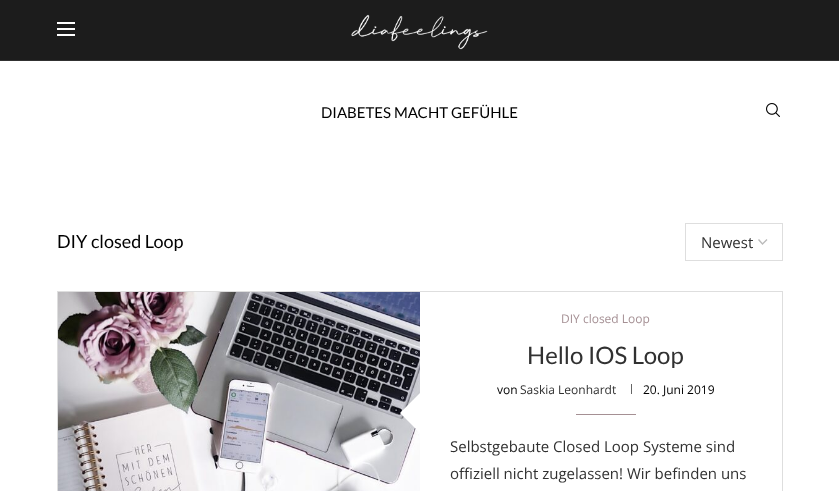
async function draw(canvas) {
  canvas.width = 839;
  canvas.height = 491;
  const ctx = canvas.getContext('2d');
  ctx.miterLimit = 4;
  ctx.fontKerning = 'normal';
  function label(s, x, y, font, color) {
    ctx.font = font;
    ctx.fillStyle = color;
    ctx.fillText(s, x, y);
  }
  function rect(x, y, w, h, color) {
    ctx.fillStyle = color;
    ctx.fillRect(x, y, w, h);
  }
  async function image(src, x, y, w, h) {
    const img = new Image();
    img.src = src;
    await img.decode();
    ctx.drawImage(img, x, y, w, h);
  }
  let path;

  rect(0, 0, 839, 491, '#fff');
  rect(0, 0, 839, 60, '#1c1c1c');
  rect(0, 60, 839, 1, '#313131');
  rect(57, 22, 18, 2, '#fff');
  rect(57, 28, 18, 2, '#fff');
  rect(57, 34, 18, 2, '#fff');
  await image('assets/img1.png', 351, 14, 137, 36);
  label('DIABETES MACHT GEFÜHLE', 321, 118, '15px Lato', '#000');
  await image('assets/img2.png', 766, 103, 14, 14);
  label('DIY closed Loop', 57, 248, '18px Lato', '#000');
  path = new Path2D('M758.5 239.5L762.5 244L767 239.5');
  ctx.strokeStyle = '#bbb';
  ctx.lineWidth = 1.4;
  ctx.stroke(path);
  ctx.strokeStyle = '#dedede';
  ctx.lineWidth = 1;
  ctx.strokeRect(685.5, 223.5, 97, 37);
  label('Newest', 701, 248, '15px Open Sans', '#313131');
  ctx.strokeRect(57.5, 291.5, 725, 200);
  await image('assets/img3.png', 58, 292, 362, 199);
  ctx.fillStyle = '#fff';
  path = new Path2D('M420 393V433L400 413Z');
  ctx.fill(path);
  label('DIY closed Loop', 561, 323, '12px Open Sans', '#a59094');
  label('Hello IOS Loop', 527, 364, '24px Lato', '#313131');
  label('von', 497, 394, '12px Open Sans', '#000');
  label('Saskia Leonhardt', 520, 394, '12px Open Sans', '#313131');
  rect(631, 384, 1, 10, '#666');
  label('20. Juni 2019', 643, 394, '12px Open Sans', '#000');
  rect(576, 414, 60, 1, '#a59094');
  label('Selbstgebaute Closed Loop Systeme sind', 450, 452, '15px Open Sans', '#313131');
  label('offiziell nicht zugelassen! Wir befinden uns', 450, 479, '15px Open Sans', '#313131');
}

draw(document.querySelector('canvas'));
